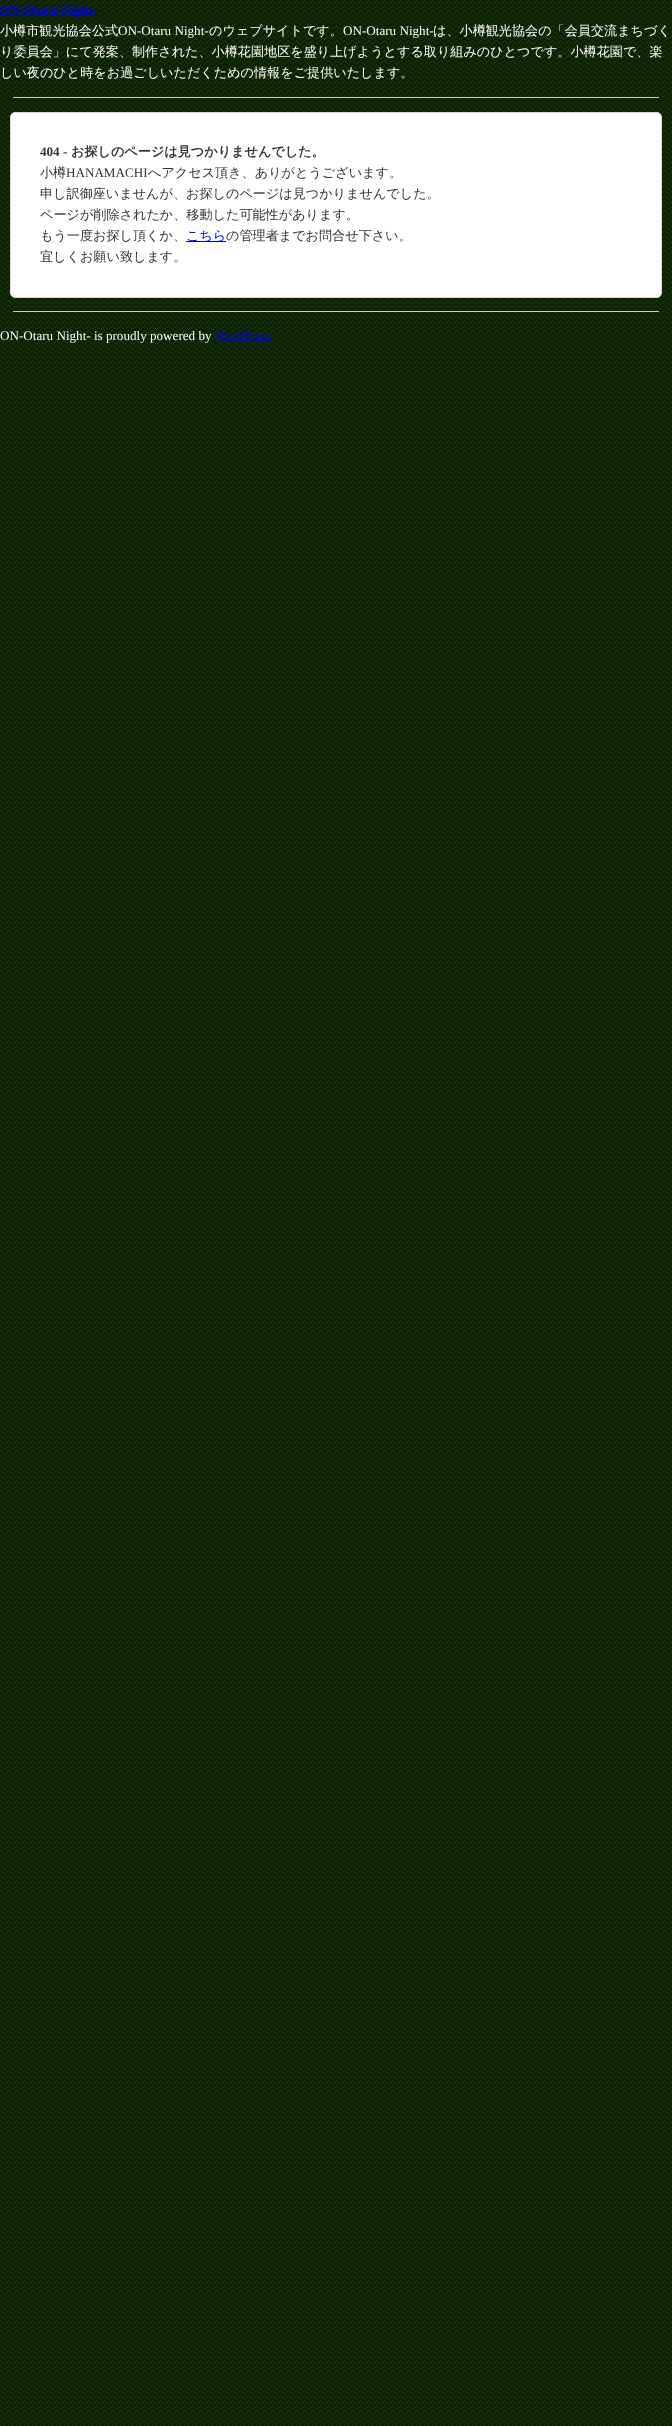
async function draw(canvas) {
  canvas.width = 672;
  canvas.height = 2426;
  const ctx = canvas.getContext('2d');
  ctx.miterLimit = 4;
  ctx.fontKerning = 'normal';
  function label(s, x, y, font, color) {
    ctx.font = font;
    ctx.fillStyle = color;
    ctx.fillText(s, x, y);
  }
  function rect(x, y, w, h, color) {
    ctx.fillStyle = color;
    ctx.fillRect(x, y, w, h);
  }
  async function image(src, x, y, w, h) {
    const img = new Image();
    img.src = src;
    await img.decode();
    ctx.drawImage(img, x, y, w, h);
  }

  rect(0, 0, 672, 2426, '#fff');
  await image('assets/img1.png', 0, 0, 672, 2426);
  rect(0, 15, 97, 1, '#00e');
  label('ON-Otaru Night-', 0, 14, 'bold 13.12px Liberation Serif', '#00e');
  label('小樽市観光協会公式', 0, 35, '500 13.12px WenQuanYi Zen Hei', '#fff');
  label('ON-Otaru Night-', 118, 35, '13.12px Liberation Serif', '#fff');
  label('のウェブサイトです。', 209, 35, '500 13.12px WenQuanYi Zen Hei', '#fff');
  label('ON-Otaru Night-', 343, 35, '13.12px Liberation Serif', '#fff');
  label('は、小樽観光協会の「会員交流まちづく', 433, 35, '500 13.12px WenQuanYi Zen Hei', '#fff');
  label('り委員会」にて発案、制作された、小樽花園地区を盛り上げようとする取り組みのひとつです。小樽花園で、楽', 0, 56, '500 13.12px WenQuanYi Zen Hei', '#fff');
  label('しい夜のひと時をお過ごしいただくための情報をご提供いたします。', 0, 77, '500 13.12px WenQuanYi Zen Hei', '#fff');
  rect(13, 97, 646, 1, '#ccc');
  ctx.fillStyle = '#fff';
  ctx.beginPath();
  ctx.roundRect(10.5, 112.5, 651, 185, 4.5);
  ctx.fill();
  ctx.strokeStyle = '#ded7c6';
  ctx.stroke();
  label('404 -', 40, 156, 'bold 13.12px Liberation Serif', '#333');
  label('お探しのページは見つかりませんでした。', 71, 156, 'bold 13.12px WenQuanYi Zen Hei', '#333');
  label('小樽', 40, 177, '500 13.12px WenQuanYi Zen Hei', '#333');
  label('HANAMACHI', 66, 177, '13.12px Liberation Serif', '#333');
  label('へアクセス頂き、ありがとうございます。', 148, 177, '500 13.12px WenQuanYi Zen Hei', '#333');
  label('申し訳御座いませんが、お探しのページは見つかりませんでした。', 40, 198, '500 13.12px WenQuanYi Zen Hei', '#333');
  label('ページが削除されたか、移動した可能性があります。', 40, 219, '500 13.12px WenQuanYi Zen Hei', '#333');
  label('もう一度お探し頂くか、', 40, 240, '500 13.12px WenQuanYi Zen Hei', '#333');
  rect(186, 241, 40, 1, '#00e');
  label('こちら', 186, 240, '500 13.12px WenQuanYi Zen Hei', '#00e');
  label('の管理者までお問合せ下さい。', 226, 240, '500 13.12px WenQuanYi Zen Hei', '#333');
  label('宜しくお願い致します。', 40, 261, '500 13.12px WenQuanYi Zen Hei', '#333');
  rect(13, 311, 646, 1, '#ccc');
  label('ON-Otaru Night- is proudly powered by', 0, 340, '13.12px Liberation Serif', '#fff');
  label('WordPress', 215, 340, '13.12px Liberation Serif', '#00e');
  rect(215, 341, 56, 1, '#00e');
}

draw(document.querySelector('canvas'));
